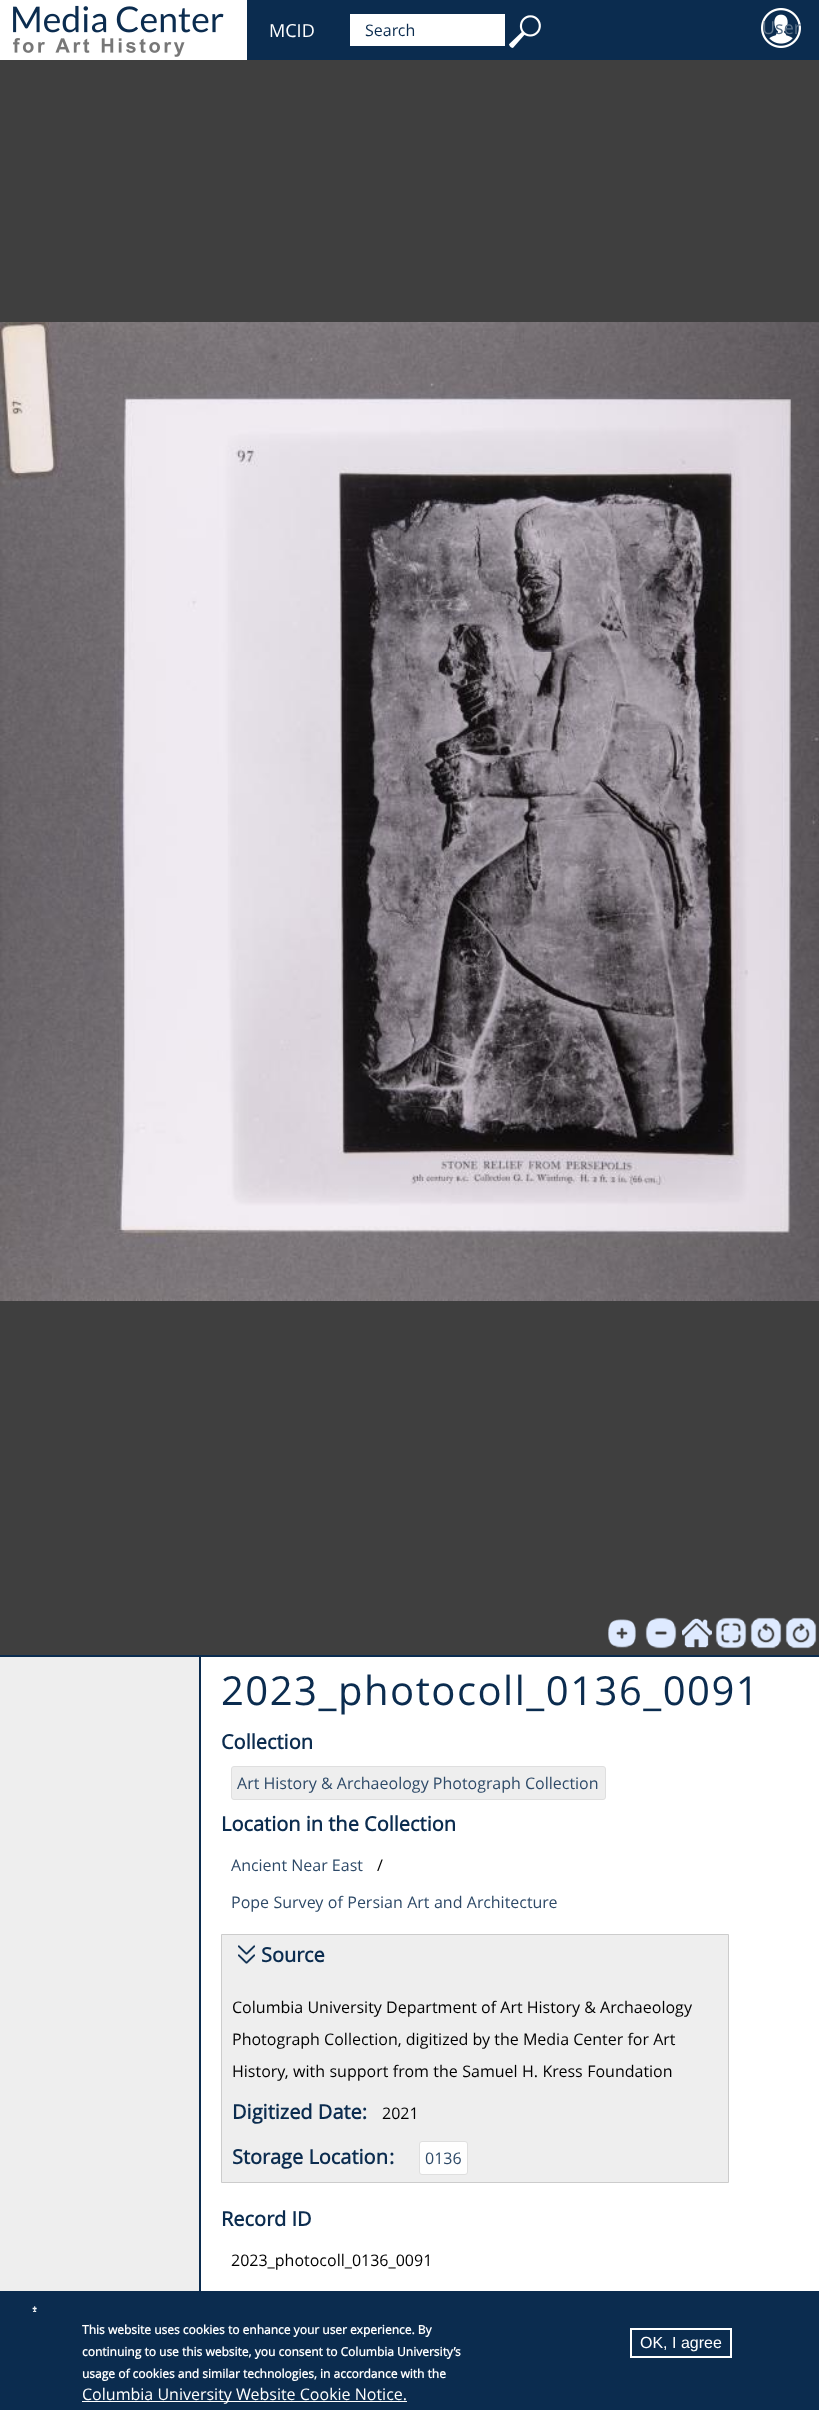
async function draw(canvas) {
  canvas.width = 819;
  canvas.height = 2410;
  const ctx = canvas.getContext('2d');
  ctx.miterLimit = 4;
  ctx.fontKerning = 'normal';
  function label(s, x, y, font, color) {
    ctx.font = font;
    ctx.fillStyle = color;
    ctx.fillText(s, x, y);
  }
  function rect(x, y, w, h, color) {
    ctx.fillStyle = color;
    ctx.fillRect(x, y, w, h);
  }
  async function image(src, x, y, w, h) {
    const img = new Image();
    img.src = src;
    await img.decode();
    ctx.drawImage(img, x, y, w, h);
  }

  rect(0, 0, 819, 2410, '#fff');
  rect(247, 0, 572, 60, '#0b2c4f');
  await image('assets/img1.png', 13, 5, 211, 52);
  label('MCID', 269, 37, '18px Open Sans', '#fff');
  rect(350, 14, 155, 32, '#fff');
  label('Search', 365, 36, '16px Open Sans', '#0b2c4f');
  await image('assets/img2.png', 509, 15, 32, 33);
  await image('assets/img3.png', 761, 8, 40, 40);
  label('User', 762, 34, '18px Open Sans', '#5c7289');
  rect(0, 60, 819, 1595, '#3f3f3f');
  await image('assets/img4.png', 0, 322, 819, 979);
  await image('assets/img5.png', 608, 1619, 28, 29);
  await image('assets/img6.png', 608, 1619, 28, 28);
  await image('assets/img7.png', 645, 1617, 32, 32);
  await image('assets/img8.png', 646, 1618, 30, 30);
  await image('assets/img9.png', 682, 1618, 30, 30);
  await image('assets/img10.png', 682, 1619, 30, 28);
  await image('assets/img11.png', 715, 1617, 32, 32);
  await image('assets/img12.png', 716, 1618, 30, 30);
  await image('assets/img13.png', 750, 1617, 32, 32);
  await image('assets/img14.png', 751, 1618, 30, 30);
  await image('assets/img15.png', 785, 1617, 32, 32);
  await image('assets/img16.png', 786, 1618, 30, 30);
  rect(0, 1655, 819, 2, '#0b2c4f');
  rect(0, 1657, 199, 634, '#eee');
  rect(199, 1657, 2, 634, '#0b2c4f');
  ctx.letterSpacing = '1.5px';
  label('2023_photocoll_0136_0091', 221, 1705, '40px Open Sans', '#0b2c4f');
  ctx.letterSpacing = '0px';
  label('Collection', 221, 1749, 'bold 20px Open Sans', '#0b2c4f');
  ctx.fillStyle = '#eee';
  ctx.beginPath();
  ctx.roundRect(231.5, 1766.5, 374, 33, 2.5);
  ctx.fill();
  ctx.strokeStyle = '#dfdfdf';
  ctx.stroke();
  label('Art History & Archaeology Photograph Collection', 237, 1789, '16px Open Sans', '#2e4a68');
  label('Location in the Collection', 221, 1831, 'bold 20px Open Sans', '#0b2c4f');
  label('Ancient Near East', 231, 1871, '16px Open Sans', '#2e4a68');
  label('/', 377, 1871, '16px Open Sans', '#000');
  ctx.wordSpacing = '0.25px';
  label('Pope Survey of Persian Art and Architecture', 231, 1908, '16px Open Sans', '#2e4a68');
  ctx.fillStyle = '#eee';
  ctx.beginPath();
  ctx.rect(221.5, 1934.5, 507, 248);
  ctx.fill();
  ctx.strokeStyle = '#ccc';
  ctx.stroke();
  await image('assets/img17.png', 238, 1944, 17, 20);
  ctx.wordSpacing = '0px';
  label('Source', 261, 1962, 'bold 20px Open Sans', '#0b2c4f');
  label('Columbia University Department of Art History & Archaeology', 232, 2013, '16px Open Sans', '#000');
  label('Photograph Collection, digitized by the Media Center for Art', 232, 2045, '16px Open Sans', '#000');
  ctx.wordSpacing = '0.25px';
  label('History, with support from the Samuel H. Kress Foundation', 232, 2077, '16px Open Sans', '#000');
  ctx.wordSpacing = '0px';
  label('Digitized Date:', 232, 2119, 'bold 20px Open Sans', '#0b2c4f');
  label('2021', 382, 2119, '16px Open Sans', '#000');
  label('Storage Location', 232, 2164, 'bold 20px Open Sans', '#0b2c4f');
  label(':', 389, 2164, 'bold 20px Open Sans', '#0b2c4f');
  ctx.fillStyle = '#fefefe';
  ctx.beginPath();
  ctx.roundRect(419.5, 2141.5, 48, 33, 2.5);
  ctx.fill();
  ctx.strokeStyle = '#dfdfdf';
  ctx.stroke();
  label('0136', 425, 2164, '16px Open Sans', '#2e4a68');
  label('Record ID', 221, 2226, 'bold 20px Open Sans', '#0b2c4f');
  label('2023_photocoll_0136_0091', 231, 2266, '16px Open Sans', '#000');
  rect(0, 2291, 819, 119, '#0b2c4f');
  await image('assets/img18.png', 32, 2306, 5, 6);
  label('This website uses cookies to enhance your user experience. By', 82, 2334, 'bold 12px Open Sans', '#fff');
  label('continuing to use this website, you consent to Columbia University’s', 82, 2356, 'bold 12px Open Sans', '#fff');
  label('usage of cookies and similar technologies, in accordance with the', 82, 2378, 'bold 12px Open Sans', '#fff');
  rect(82, 2401, 325, 1, '#fff');
  label('Columbia University Website Cookie Notice.', 82, 2400, '16px Open Sans', '#fff');
  ctx.strokeStyle = '#fff';
  ctx.lineWidth = 2;
  ctx.strokeRect(631, 2329, 100, 28);
  label('OK, I agree', 640, 2348, '16px Liberation Sans', '#fff');
}

draw(document.querySelector('canvas'));
